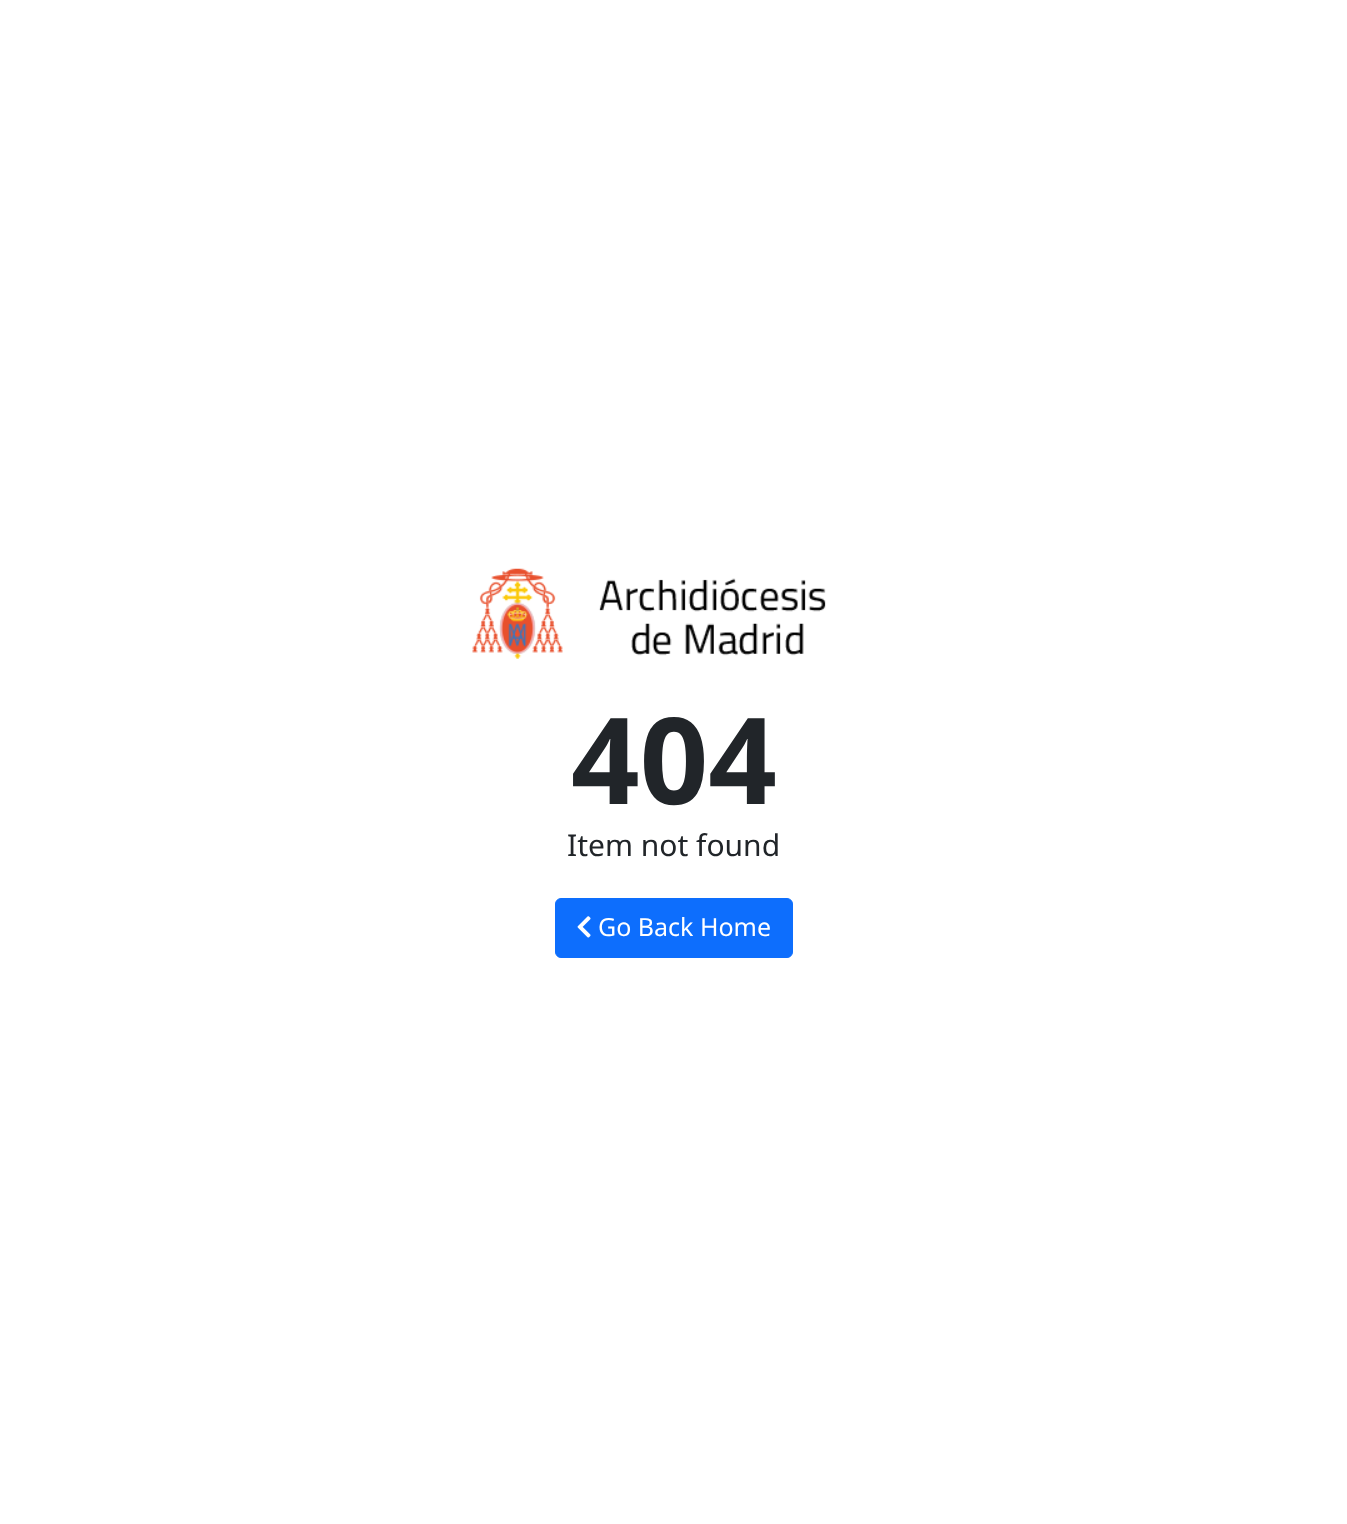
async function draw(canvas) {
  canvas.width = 1347;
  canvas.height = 1524;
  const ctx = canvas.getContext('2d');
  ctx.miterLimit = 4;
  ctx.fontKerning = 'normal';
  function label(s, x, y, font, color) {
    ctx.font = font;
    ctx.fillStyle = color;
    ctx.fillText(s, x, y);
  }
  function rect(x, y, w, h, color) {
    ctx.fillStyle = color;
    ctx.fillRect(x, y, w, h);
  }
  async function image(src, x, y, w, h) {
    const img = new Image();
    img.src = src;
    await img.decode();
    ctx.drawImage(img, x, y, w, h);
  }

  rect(0, 0, 1347, 1524, '#fff');
  await image('assets/img1.png', 472, 568, 354, 91);
  label('404', 571, 804, 'bold 120px Noto Sans', '#212529');
  label('Item not found', 567, 856, '30px Noto Sans', '#212529');
  ctx.fillStyle = '#0d6efd';
  ctx.beginPath();
  ctx.roundRect(555.5, 898.5, 237, 59, 5.5);
  ctx.fill();
  ctx.strokeStyle = '#0d6efd';
  ctx.stroke();
  await image('assets/img2.png', 577, 916, 14, 22);
  label('Go Back Home', 598, 936, '25px Noto Sans', '#fff');
}

draw(document.querySelector('canvas'));
